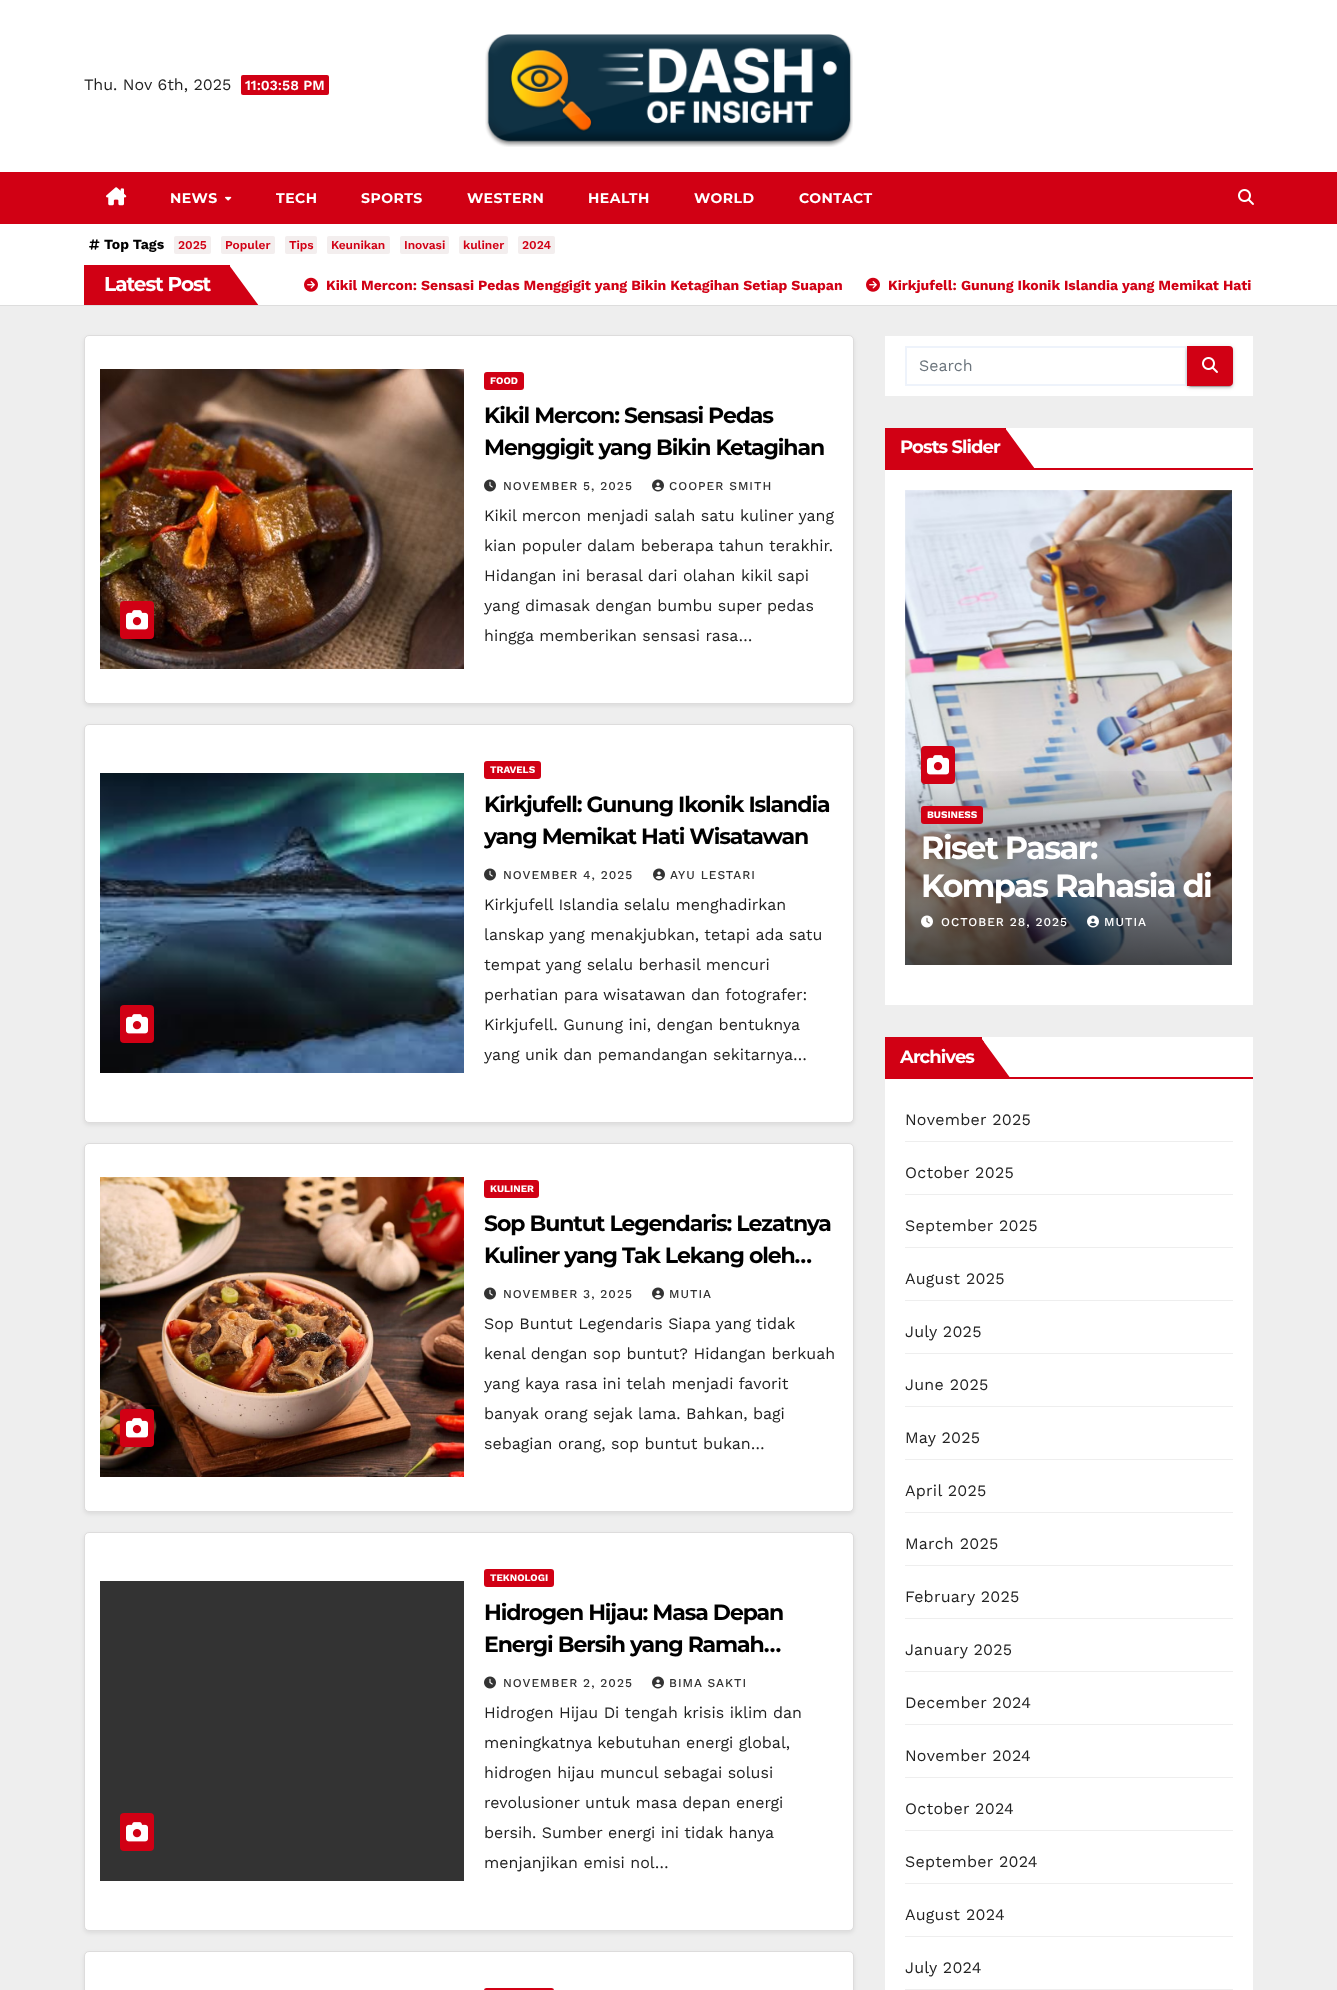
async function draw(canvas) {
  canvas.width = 1337;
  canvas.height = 1990;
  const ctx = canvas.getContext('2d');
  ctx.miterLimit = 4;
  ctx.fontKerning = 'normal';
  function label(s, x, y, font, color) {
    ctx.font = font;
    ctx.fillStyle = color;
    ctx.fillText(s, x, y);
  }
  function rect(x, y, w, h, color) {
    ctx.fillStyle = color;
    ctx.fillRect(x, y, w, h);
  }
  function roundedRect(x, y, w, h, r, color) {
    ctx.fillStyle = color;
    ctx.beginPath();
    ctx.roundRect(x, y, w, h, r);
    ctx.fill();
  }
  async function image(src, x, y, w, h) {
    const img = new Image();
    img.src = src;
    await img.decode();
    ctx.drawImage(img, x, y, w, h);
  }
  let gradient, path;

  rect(0, 0, 1337, 1990, '#eee');
  rect(0, 0, 1337, 172, '#fff');
  label('Thu. Nov 6th, 2025', 84, 90, '16px Work Sans', '#222');
  roundedRect(241, 75, 88, 20, 2, '#d10014');
  label('11:03:58 PM', 245, 90, '600 14px Work Sans', '#fff');
  await image('assets/img1.png', 485, 34, 368, 113);
  rect(0, 172, 1337, 52, '#d10014');
  await image('assets/img2.png', 106, 187, 21, 19);
  ctx.letterSpacing = '0.5px';
  label('NEWS', 170, 203, 'bold 14px Montserrat', '#fff');
  await image('assets/img3.png', 225, 196, 7, 5);
  label('TECH', 276, 203, 'bold 14px Montserrat', '#fff');
  label('SPORTS', 361, 203, 'bold 14px Montserrat', '#fff');
  label('WESTERN', 467, 203, 'bold 14px Montserrat', '#fff');
  label('HEALTH', 588, 203, 'bold 14px Montserrat', '#fff');
  label('WORLD', 694, 203, 'bold 14px Montserrat', '#fff');
  label('CONTACT', 799, 203, 'bold 14px Montserrat', '#fff');
  await image('assets/img4.png', 1238, 189, 16, 16);
  rect(0, 224, 1337, 81, '#fff');
  await image('assets/img5.png', 89, 239, 11, 11);
  ctx.letterSpacing = '0px';
  label('Top Tags', 104, 249, 'bold 14px Work Sans', '#000');
  roundedRect(174, 236, 37, 18, 2, '#f3eeee');
  label('2025', 178, 249, '600 12px Work Sans', '#d10014');
  roundedRect(221, 236, 54, 18, 2, '#f3eeee');
  label('Populer', 225, 249, '600 12px Work Sans', '#d10014');
  roundedRect(285, 236, 32, 18, 2, '#f3eeee');
  label('Tips', 289, 249, '600 12px Work Sans', '#d10014');
  roundedRect(327, 236, 63, 18, 2, '#f3eeee');
  label('Keunikan', 331, 249, '600 12px Work Sans', '#d10014');
  roundedRect(400, 236, 49, 18, 2, '#f3eeee');
  label('Inovasi', 404, 249, '600 12px Work Sans', '#d10014');
  roundedRect(459, 236, 49, 18, 2, '#f3eeee');
  label('kuliner', 463, 249, '600 12px Work Sans', '#d10014');
  roundedRect(518, 236, 37, 18, 2, '#f3eeee');
  label('2024', 522, 249, '600 12px Work Sans', '#d10014');
  rect(0, 305, 1337, 1, '#ddd');
  rect(84, 265, 146, 40, '#d10014');
  ctx.letterSpacing = '-1px';
  label('Latest Post', 104, 291, 'bold 20px Montserrat', '#fff');
  ctx.save();
  ctx.beginPath();
  ctx.rect(84, 265, 1170, 40);
  ctx.clip();
  ctx.fillStyle = '#d10014';
  path = new Path2D('M229 306V265L259 306Z');
  ctx.fill(path);
  ctx.restore();
  await image('assets/img6.png', 304, 277, 14, 15);
  ctx.letterSpacing = '0px';
  label('Kikil Mercon: Sensasi Pedas Menggigit yang Bikin Ketagihan Setiap Suapan', 326, 290, 'bold 14px Work Sans', '#d10014');
  await image('assets/img6.png', 866, 277, 14, 15);
  label('Kirkjufell: Gunung Ikonik Islandia yang Memikat Hati', 888, 290, 'bold 14px Work Sans', '#d10014');
  ctx.fillStyle = '#00000014';
  ctx.filter = 'blur(2px)';
  ctx.beginPath();
  ctx.roundRect(84, 337, 770, 369, 5);
  ctx.fill();
  ctx.filter = 'none';
  ctx.fillStyle = '#fff';
  ctx.beginPath();
  ctx.roundRect(84.5, 335.5, 769, 368, 4.5);
  ctx.fill();
  ctx.strokeStyle = '#dddcdc';
  ctx.stroke();
  await image('assets/img7.png', 100, 369, 364, 300);
  roundedRect(120, 601, 34, 38, 4, '#d10014');
  await image('assets/img8.png', 126, 610, 22, 20);
  roundedRect(484, 372, 40, 18, 3, '#d10014');
  label('FOOD', 490, 384, 'bold 10px Work Sans', '#fff');
  ctx.letterSpacing = '-1.1px';
  label('Kikil Mercon: Sensasi Pedas', 484, 423, 'bold 22px Montserrat', '#000');
  label('Menggigit yang Bikin Ketagihan', 484, 455, 'bold 22px Montserrat', '#000');
  await image('assets/img9.png', 484, 479, 12, 13);
  ctx.letterSpacing = '1px';
  label('NOVEMBER 5, 2025', 503, 490, '500 12px Work Sans', '#333');
  await image('assets/img10.png', 652, 479, 12, 13);
  label('COOPER SMITH', 669, 490, '500 12px Work Sans', '#333');
  ctx.letterSpacing = '0px';
  label('Kikil mercon menjadi salah satu kuliner yang', 484, 521, '16px Work Sans', '#222');
  label('kian populer dalam beberapa tahun terakhir.', 484, 551, '16px Work Sans', '#222');
  label('Hidangan ini berasal dari olahan kikil sapi', 484, 581, '16px Work Sans', '#222');
  label('yang dimasak dengan bumbu super pedas', 484, 611, '16px Work Sans', '#222');
  label('hingga memberikan sensasi rasa…', 484, 641, '16px Work Sans', '#222');
  ctx.fillStyle = '#00000014';
  ctx.filter = 'blur(2px)';
  ctx.beginPath();
  ctx.roundRect(84, 726, 770, 399, 5);
  ctx.fill();
  ctx.filter = 'none';
  ctx.fillStyle = '#fff';
  ctx.beginPath();
  ctx.roundRect(84.5, 724.5, 769, 398, 4.5);
  ctx.fill();
  ctx.stroke();
  await image('assets/img11.png', 100, 773, 364, 300);
  roundedRect(120, 1005, 34, 38, 4, '#d10014');
  await image('assets/img8.png', 126, 1014, 22, 20);
  roundedRect(484, 761, 57, 18, 3, '#d10014');
  label('TRAVELS', 490, 773, 'bold 10px Work Sans', '#fff');
  ctx.letterSpacing = '-1.1px';
  label('Kirkjufell: Gunung Ikonik Islandia', 484, 812, 'bold 22px Montserrat', '#000');
  ctx.save();
  ctx.beginPath();
  ctx.rect(484, 789, 354, 64);
  ctx.clip();
  label('yang Memikat Hati Wisatawan', 484, 844, 'bold 22px Montserrat', '#000');
  ctx.restore();
  await image('assets/img9.png', 484, 868, 12, 13);
  ctx.letterSpacing = '1px';
  label('NOVEMBER 4, 2025', 503, 879, '500 12px Work Sans', '#333');
  await image('assets/img10.png', 653, 868, 12, 13);
  label('AYU LESTARI', 670, 879, '500 12px Work Sans', '#333');
  ctx.letterSpacing = '0px';
  label('Kirkjufell Islandia selalu menghadirkan', 484, 910, '16px Work Sans', '#222');
  label('lanskap yang menakjubkan, tetapi ada satu', 484, 940, '16px Work Sans', '#222');
  label('tempat yang selalu berhasil mencuri', 484, 970, '16px Work Sans', '#222');
  label('perhatian para wisatawan dan fotografer:', 484, 1000, '16px Work Sans', '#222');
  label('Kirkjufell. Gunung ini, dengan bentuknya', 484, 1030, '16px Work Sans', '#222');
  label('yang unik dan pemandangan sekitarnya…', 484, 1060, '16px Work Sans', '#222');
  ctx.fillStyle = '#00000014';
  ctx.filter = 'blur(2px)';
  ctx.beginPath();
  ctx.roundRect(84, 1145, 770, 369, 5);
  ctx.fill();
  ctx.filter = 'none';
  ctx.fillStyle = '#fff';
  ctx.beginPath();
  ctx.roundRect(84.5, 1143.5, 769, 368, 4.5);
  ctx.fill();
  ctx.stroke();
  await image('assets/img12.png', 100, 1177, 364, 300);
  roundedRect(120, 1409, 34, 38, 4, '#d10014');
  await image('assets/img8.png', 126, 1418, 22, 20);
  roundedRect(484, 1180, 55, 18, 3, '#d10014');
  label('KULINER', 490, 1192, 'bold 10px Work Sans', '#fff');
  ctx.letterSpacing = '-1.1px';
  label('Sop Buntut Legendaris: Lezatnya', 484, 1231, 'bold 22px Montserrat', '#000');
  label('Kuliner yang Tak Lekang oleh…', 484, 1263, 'bold 22px Montserrat', '#000');
  await image('assets/img9.png', 484, 1287, 12, 13);
  ctx.letterSpacing = '1px';
  label('NOVEMBER 3, 2025', 503, 1298, '500 12px Work Sans', '#333');
  await image('assets/img10.png', 652, 1287, 12, 13);
  label('MUTIA', 669, 1298, '500 12px Work Sans', '#333');
  ctx.letterSpacing = '0px';
  label('Sop Buntut Legendaris Siapa yang tidak', 484, 1329, '16px Work Sans', '#222');
  label('kenal dengan sop buntut? Hidangan berkuah', 484, 1359, '16px Work Sans', '#222');
  label('yang kaya rasa ini telah menjadi favorit', 484, 1389, '16px Work Sans', '#222');
  label('banyak orang sejak lama. Bahkan, bagi', 484, 1419, '16px Work Sans', '#222');
  label('sebagian orang, sop buntut bukan…', 484, 1449, '16px Work Sans', '#222');
  ctx.fillStyle = '#00000014';
  ctx.filter = 'blur(2px)';
  ctx.beginPath();
  ctx.roundRect(84, 1534, 770, 399, 5);
  ctx.fill();
  ctx.filter = 'none';
  ctx.fillStyle = '#fff';
  ctx.beginPath();
  ctx.roundRect(84.5, 1532.5, 769, 398, 4.5);
  ctx.fill();
  ctx.stroke();
  rect(100, 1581, 364, 300, '#333');
  roundedRect(120, 1813, 34, 38, 4, '#d10014');
  await image('assets/img8.png', 126, 1822, 22, 20);
  roundedRect(484, 1569, 70, 18, 3, '#d10014');
  label('TEKNOLOGI', 490, 1581, 'bold 10px Work Sans', '#fff');
  ctx.letterSpacing = '-1.1px';
  label('Hidrogen Hijau: Masa Depan', 484, 1620, 'bold 22px Montserrat', '#000');
  label('Energi Bersih yang Ramah…', 484, 1652, 'bold 22px Montserrat', '#000');
  await image('assets/img9.png', 484, 1676, 12, 13);
  ctx.letterSpacing = '1px';
  label('NOVEMBER 2, 2025', 503, 1687, '500 12px Work Sans', '#333');
  await image('assets/img10.png', 652, 1676, 12, 13);
  label('BIMA SAKTI', 669, 1687, '500 12px Work Sans', '#333');
  ctx.letterSpacing = '0px';
  label('Hidrogen Hijau Di tengah krisis iklim dan', 484, 1718, '16px Work Sans', '#222');
  label('meningkatnya kebutuhan energi global,', 484, 1748, '16px Work Sans', '#222');
  label('hidrogen hijau muncul sebagai solusi', 484, 1778, '16px Work Sans', '#222');
  label('revolusioner untuk masa depan energi', 484, 1808, '16px Work Sans', '#222');
  label('bersih. Sumber energi ini tidak hanya', 484, 1838, '16px Work Sans', '#222');
  label('menjanjikan emisi nol…', 484, 1868, '16px Work Sans', '#222');
  ctx.fillStyle = '#00000014';
  ctx.filter = 'blur(2px)';
  ctx.beginPath();
  ctx.roundRect(84, 1953, 770, 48, 5);
  ctx.fill();
  ctx.filter = 'none';
  ctx.fillStyle = '#fff';
  ctx.beginPath();
  ctx.roundRect(84.5, 1951.5, 769, 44, 4.5);
  ctx.fill();
  ctx.stroke();
  roundedRect(484, 1988, 70, 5, 3, '#d10014');
  rect(885, 336, 368, 60, '#fff');
  ctx.strokeStyle = '#eef3fb';
  ctx.lineWidth = 2;
  ctx.strokeRect(906, 347, 280, 38);
  label('Search', 919, 371, '16px Work Sans', '#6c757d');
  ctx.fillStyle = '#0000001f';
  ctx.filter = 'blur(2.5px)';
  ctx.beginPath();
  ctx.roundRect(1187, 347, 46, 40, 4);
  ctx.fill();
  ctx.filter = 'none';
  ctx.fillStyle = '#00000033';
  ctx.filter = 'blur(0.5px)';
  ctx.beginPath();
  ctx.roundRect(1189, 351, 42, 36, 2);
  ctx.fill();
  ctx.filter = 'none';
  ctx.fillStyle = '#00000024';
  ctx.filter = 'blur(1px)';
  ctx.beginPath();
  ctx.roundRect(1187, 348, 46, 40, 4);
  ctx.fill();
  ctx.filter = 'none';
  ctx.fillStyle = '#d10014';
  ctx.beginPath();
  ctx.roundRect(1187, 346, 46, 40, [0, 4, 4, 0]);
  ctx.fill();
  await image('assets/img4.png', 1202, 357, 16, 16);
  rect(885, 428, 368, 577, '#fff');
  rect(885, 468, 368, 2, '#d10014');
  rect(885, 428, 121, 40, '#d10014');
  ctx.letterSpacing = '-0.9px';
  label('Posts Slider', 900, 453, 'bold 18px Montserrat', '#fff');
  ctx.fillStyle = '#d10014';
  path = new Path2D('M1005 428V469H1035Z');
  ctx.fill(path);
  await image('assets/img13.png', 905, 490, 327, 475);
  gradient = ctx.createLinearGradient(1069, 766, 1069, 965);
  gradient.addColorStop(0, '#00000000');
  gradient.addColorStop(0.5, '#00000066');
  gradient.addColorStop(1, '#000000b3');
  ctx.fillStyle = gradient;
  ctx.fillRect(905, 771, 327, 194);
  roundedRect(921, 746, 34, 38, 4, '#d10014');
  await image('assets/img8.png', 927, 755, 22, 20);
  roundedRect(921, 806, 62, 18, 3, '#d10014');
  ctx.letterSpacing = '0px';
  label('BUSINESS', 927, 818, 'bold 10px Work Sans', '#fff');
  ctx.letterSpacing = '-1.6px';
  label('Riset Pasar:', 921, 859, 'bold 32px Montserrat', '#fff');
  label('Kompas Rahasia di', 921, 897, 'bold 32px Montserrat', '#fff');
  await image('assets/img14.png', 921, 915, 12, 13);
  ctx.letterSpacing = '1px';
  label('OCTOBER 28, 2025', 941, 926, '500 12px Work Sans', '#fff');
  await image('assets/img15.png', 1087, 915, 12, 13);
  label('MUTIA', 1104, 926, '500 12px Work Sans', '#fff');
  rect(885, 1037, 368, 953, '#fff');
  rect(885, 1077, 368, 2, '#d10014');
  rect(885, 1037, 97, 40, '#d10014');
  ctx.letterSpacing = '-0.9px';
  label('Archives', 900, 1063, 'bold 18px Montserrat', '#fff');
  ctx.fillStyle = '#d10014';
  path = new Path2D('M981 1038V1079H1011Z');
  ctx.fill(path);
  path = new Path2D('M981 1038V1079L984 1076V1042Z');
  ctx.fill(path);
  rect(905, 1141, 328, 1, '#eee');
  ctx.letterSpacing = '0.25px';
  label('November 2025', 905, 1125, '16px Work Sans', '#222');
  rect(905, 1194, 328, 1, '#eee');
  label('October 2025', 905, 1178, '16px Work Sans', '#222');
  rect(905, 1247, 328, 1, '#eee');
  label('September 2025', 905, 1231, '16px Work Sans', '#222');
  rect(905, 1300, 328, 1, '#eee');
  label('August 2025', 905, 1284, '16px Work Sans', '#222');
  rect(905, 1353, 328, 1, '#eee');
  label('July 2025', 905, 1337, '16px Work Sans', '#222');
  rect(905, 1406, 328, 1, '#eee');
  label('June 2025', 905, 1390, '16px Work Sans', '#222');
  rect(905, 1459, 328, 1, '#eee');
  label('May 2025', 905, 1443, '16px Work Sans', '#222');
  rect(905, 1512, 328, 1, '#eee');
  label('April 2025', 905, 1496, '16px Work Sans', '#222');
  rect(905, 1565, 328, 1, '#eee');
  label('March 2025', 905, 1549, '16px Work Sans', '#222');
  rect(905, 1618, 328, 1, '#eee');
  label('February 2025', 905, 1602, '16px Work Sans', '#222');
  rect(905, 1671, 328, 1, '#eee');
  label('January 2025', 905, 1655, '16px Work Sans', '#222');
  rect(905, 1724, 328, 1, '#eee');
  label('December 2024', 905, 1708, '16px Work Sans', '#222');
  rect(905, 1777, 328, 1, '#eee');
  label('November 2024', 905, 1761, '16px Work Sans', '#222');
  rect(905, 1830, 328, 1, '#eee');
  label('October 2024', 905, 1814, '16px Work Sans', '#222');
  rect(905, 1883, 328, 1, '#eee');
  label('September 2024', 905, 1867, '16px Work Sans', '#222');
  rect(905, 1936, 328, 1, '#eee');
  label('August 2024', 905, 1920, '16px Work Sans', '#222');
  rect(905, 1989, 328, 1, '#eee');
  label('July 2024', 905, 1973, '16px Work Sans', '#222');
}

draw(document.querySelector('canvas'));
